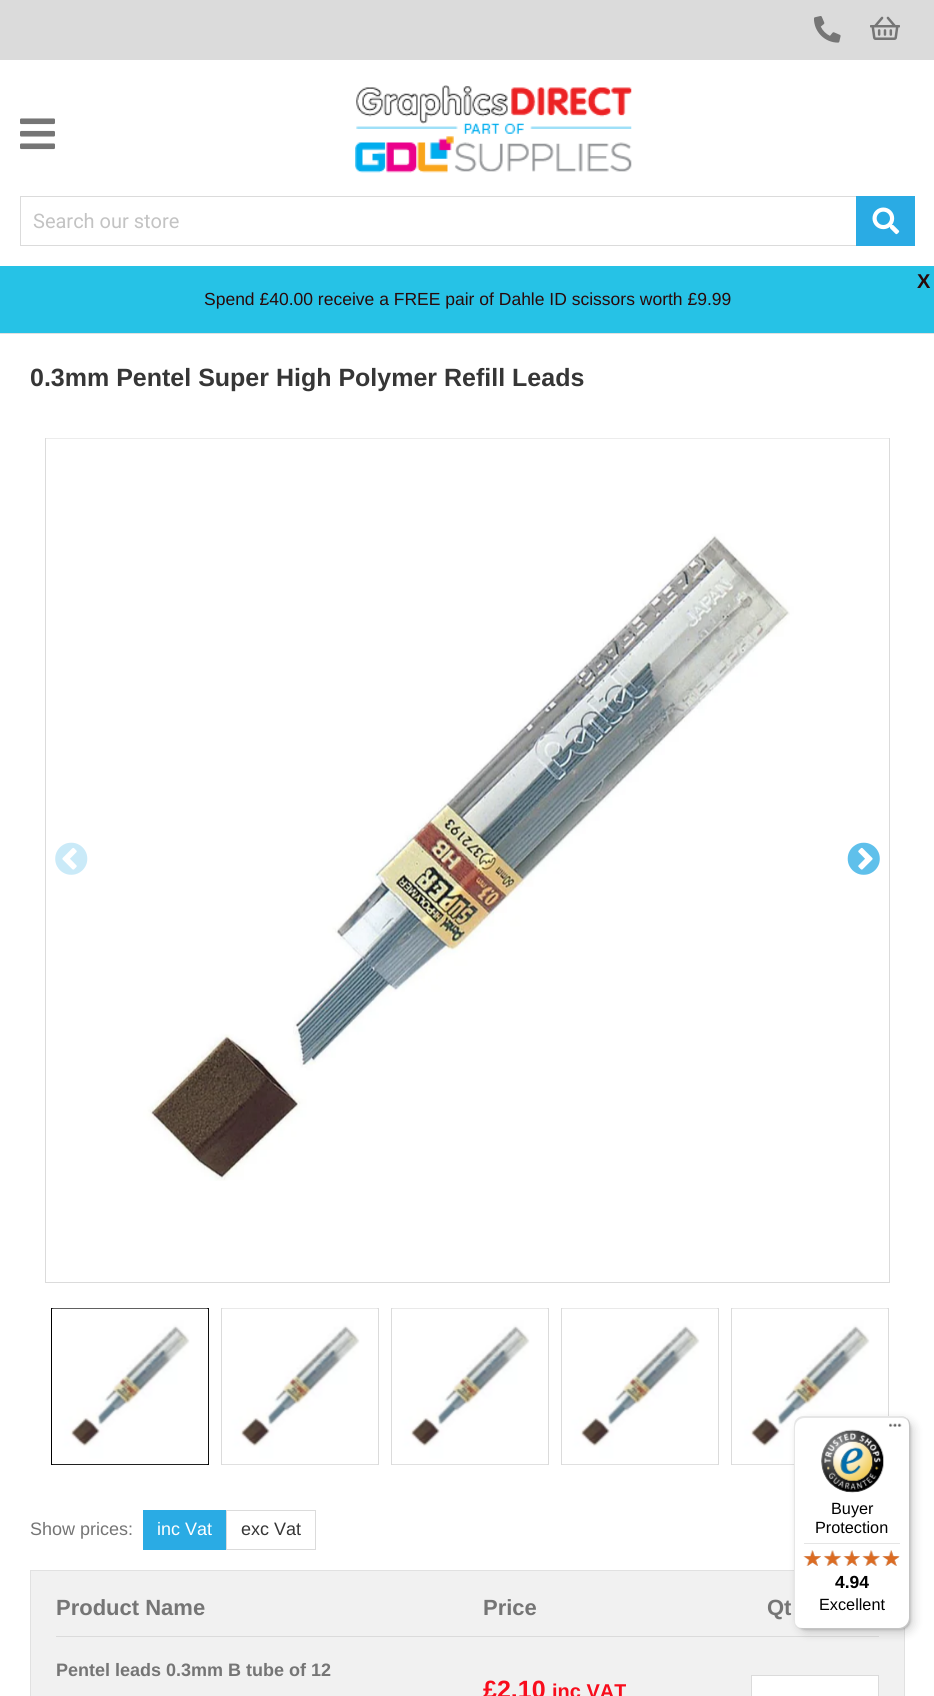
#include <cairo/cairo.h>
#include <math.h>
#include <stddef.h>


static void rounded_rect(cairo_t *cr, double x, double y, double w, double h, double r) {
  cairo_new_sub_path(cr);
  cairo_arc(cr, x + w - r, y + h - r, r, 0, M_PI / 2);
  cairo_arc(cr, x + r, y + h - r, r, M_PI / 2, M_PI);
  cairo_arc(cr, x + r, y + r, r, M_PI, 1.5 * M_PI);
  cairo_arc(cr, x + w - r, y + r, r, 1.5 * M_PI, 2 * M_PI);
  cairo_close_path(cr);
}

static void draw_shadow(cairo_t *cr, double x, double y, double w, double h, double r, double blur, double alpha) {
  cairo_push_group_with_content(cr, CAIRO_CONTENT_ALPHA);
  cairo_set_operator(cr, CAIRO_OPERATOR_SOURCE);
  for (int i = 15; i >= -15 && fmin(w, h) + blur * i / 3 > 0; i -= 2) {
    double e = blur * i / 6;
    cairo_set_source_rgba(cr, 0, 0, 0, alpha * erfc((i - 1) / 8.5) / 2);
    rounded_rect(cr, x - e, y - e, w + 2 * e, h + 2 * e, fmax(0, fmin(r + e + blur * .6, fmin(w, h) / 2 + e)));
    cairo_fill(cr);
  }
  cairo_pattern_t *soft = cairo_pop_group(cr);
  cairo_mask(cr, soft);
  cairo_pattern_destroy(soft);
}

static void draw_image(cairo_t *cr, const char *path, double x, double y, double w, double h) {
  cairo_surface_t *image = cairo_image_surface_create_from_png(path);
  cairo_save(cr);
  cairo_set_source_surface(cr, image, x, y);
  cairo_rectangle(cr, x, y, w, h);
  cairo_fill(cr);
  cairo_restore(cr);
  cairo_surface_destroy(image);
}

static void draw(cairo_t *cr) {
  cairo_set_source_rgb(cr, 1, 1, 1);
  cairo_paint(cr);
  cairo_set_source_rgb(cr, 219 / 255.0, 219 / 255.0, 219 / 255.0);
  cairo_rectangle(cr, 0, 0, 934, 60);
  cairo_fill(cr);
  draw_image(cr, "images/1.png", 814, 16, 27, 27);
  draw_image(cr, "images/2.png", 870, 16, 30, 24);
  draw_image(cr, "images/3.png", 20, 118, 35, 32);
  draw_image(cr, "images/4.png", 355, 85, 277, 88);
  cairo_rectangle(cr, 20.5, 196.5, 837, 49);
  cairo_set_line_width(cr, 1);
  cairo_stroke(cr);
  cairo_set_source_rgb(cr, 42 / 255.0, 171 / 255.0, 228 / 255.0);
  cairo_rectangle(cr, 856, 196, 59, 50);
  cairo_fill(cr);
  draw_image(cr, "images/5.png", 872, 207, 28, 28);
  cairo_set_source_rgb(cr, 38 / 255.0, 194 / 255.0, 230 / 255.0);
  cairo_rectangle(cr, 0, 266, 934, 67);
  cairo_fill(cr);
  cairo_set_source_rgb(cr, 225 / 255.0, 225 / 255.0, 225 / 255.0);
  cairo_rectangle(cr, 0, 333, 934, 1);
  cairo_fill(cr);
  cairo_rectangle(cr, 45.5, 438.5, 844, 844);
  cairo_set_source_rgb(cr, 219 / 255.0, 219 / 255.0, 219 / 255.0);
  cairo_stroke(cr);
  draw_image(cr, "images/6.png", 46, 438, 843, 743);
  draw_image(cr, "images/7.png", 55, 842, 33, 33);
  draw_image(cr, "images/8.png", 847, 842, 33, 33);
  cairo_rectangle(cr, 51.5, 1308.5, 157, 156);
  cairo_set_source_rgb(cr, 0, 0, 0);
  cairo_stroke(cr);
  draw_image(cr, "images/9.png", 52, 1308, 157, 157);
  cairo_rectangle(cr, 221.5, 1308.5, 157, 156);
  cairo_set_source_rgb(cr, 219 / 255.0, 219 / 255.0, 219 / 255.0);
  cairo_stroke(cr);
  draw_image(cr, "images/10.png", 222, 1308, 156, 157);
  cairo_rectangle(cr, 391.5, 1308.5, 157, 156);
  cairo_stroke(cr);
  draw_image(cr, "images/11.png", 392, 1308, 156, 157);
  cairo_rectangle(cr, 561.5, 1308.5, 157, 156);
  cairo_stroke(cr);
  draw_image(cr, "images/12.png", 562, 1308, 156, 157);
  cairo_rectangle(cr, 731.5, 1308.5, 157, 156);
  cairo_stroke(cr);
  draw_image(cr, "images/10.png", 732, 1308, 156, 157);
  cairo_set_source_rgb(cr, 42 / 255.0, 171 / 255.0, 228 / 255.0);
  cairo_rectangle(cr, 143, 1510, 83, 40);
  cairo_fill(cr);
  cairo_rectangle(cr, 226.5, 1510.5, 89, 39);
  cairo_set_source_rgb(cr, 219 / 255.0, 219 / 255.0, 219 / 255.0);
  cairo_stroke(cr);
  cairo_set_source_rgb(cr, 241 / 255.0, 241 / 255.0, 241 / 255.0);
  cairo_rectangle(cr, 30.5, 1570.5, 874, 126);
  cairo_fill_preserve(cr);
  cairo_set_source_rgb(cr, 225 / 255.0, 225 / 255.0, 225 / 255.0);
  cairo_stroke(cr);
  cairo_set_source_rgb(cr, 219 / 255.0, 219 / 255.0, 219 / 255.0);
  cairo_rectangle(cr, 56, 1636, 823, 1);
  cairo_fill(cr);
  cairo_set_source_rgb(cr, 1, 1, 1);
  cairo_rectangle(cr, 751.5, 1675.5, 127, 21);
  cairo_fill_preserve(cr);
  cairo_set_source_rgb(cr, 219 / 255.0, 219 / 255.0, 219 / 255.0);
  cairo_stroke(cr);
  cairo_set_source_rgb(cr, 0, 0, 0);
  draw_shadow(cr, 798, 1420, 116, 213, 10, 5, 0.15);
  draw_shadow(cr, 795, 1418, 116, 212, 10, 1, 0.15);
  cairo_set_source_rgb(cr, 1, 1, 1);
  rounded_rect(cr, 794, 1416, 116, 213, 10);
  cairo_fill(cr);
  cairo_set_source_rgba(cr, 0, 0, 0, 0.1);
  cairo_new_path(cr);
  cairo_move_to(cr, 805, 1418);
  cairo_line_to(cr, 901, 1418);
  cairo_curve_to(cr, 904, 1418, 907, 1419, 909, 1422);
  cairo_curve_to(cr, 907, 1418, 904, 1416, 900, 1416);
  cairo_line_to(cr, 804, 1416);
  cairo_curve_to(cr, 798, 1416, 794, 1420, 794, 1426);
  cairo_line_to(cr, 794, 1619);
  cairo_curve_to(cr, 794, 1621, 795, 1624, 796, 1625);
  cairo_curve_to(cr, 795, 1624, 795, 1622, 795, 1620);
  cairo_line_to(cr, 795, 1428);
  cairo_curve_to(cr, 795, 1422, 799, 1418, 805, 1418);
  cairo_close_path(cr);
  cairo_fill(cr);
  cairo_set_source_rgba(cr, 0, 0, 0, 0.2);
  cairo_new_path(cr);
  cairo_move_to(cr, 798, 1627);
  cairo_curve_to(cr, 800, 1628, 802, 1629, 804, 1629);
  cairo_line_to(cr, 900, 1629);
  cairo_curve_to(cr, 906, 1629, 910, 1625, 910, 1619);
  cairo_line_to(cr, 910, 1426);
  cairo_curve_to(cr, 910, 1423, 909, 1420, 907, 1418);
  cairo_curve_to(cr, 908, 1420, 909, 1422, 909, 1425);
  cairo_line_to(cr, 909, 1618);
  cairo_curve_to(cr, 909, 1623, 904, 1628, 899, 1628);
  cairo_line_to(cr, 802, 1628);
  cairo_curve_to(cr, 801, 1628, 799, 1628, 798, 1627);
  cairo_close_path(cr);
  cairo_fill(cr);
  cairo_set_source_rgba(cr, 50 / 255.0, 50 / 255.0, 50 / 255.0, 0.2);
  cairo_new_path(cr);
  cairo_move_to(cr, 798, 1627);
  cairo_curve_to(cr, 799, 1628, 802, 1629, 804, 1629);
  cairo_line_to(cr, 900, 1629);
  cairo_curve_to(cr, 906, 1629, 910, 1625, 910, 1619);
  cairo_line_to(cr, 910, 1426);
  cairo_curve_to(cr, 910, 1420, 906, 1416, 900, 1416);
  cairo_line_to(cr, 899, 1416);
  cairo_curve_to(cr, 905, 1416, 909, 1420, 909, 1426);
  cairo_line_to(cr, 909, 1618);
  cairo_curve_to(cr, 909, 1624, 905, 1628, 899, 1628);
  cairo_line_to(cr, 803, 1628);
  cairo_curve_to(cr, 801, 1628, 799, 1628, 798, 1627);
  cairo_close_path(cr);
  cairo_fill(cr);
  cairo_set_source_rgba(cr, 1, 1, 1, 0.3);
  cairo_new_path(cr);
  cairo_move_to(cr, 796, 1625);
  cairo_curve_to(cr, 798, 1628, 801, 1629, 804, 1629);
  cairo_line_to(cr, 900, 1629);
  cairo_curve_to(cr, 906, 1629, 910, 1625, 910, 1619);
  cairo_line_to(cr, 910, 1426);
  cairo_curve_to(cr, 910, 1420, 906, 1416, 900, 1416);
  cairo_line_to(cr, 899, 1416);
  cairo_curve_to(cr, 905, 1416, 909, 1420, 909, 1426);
  cairo_line_to(cr, 909, 1618);
  cairo_curve_to(cr, 909, 1624, 905, 1628, 899, 1628);
  cairo_line_to(cr, 803, 1628);
  cairo_curve_to(cr, 801, 1628, 798, 1627, 796, 1625);
  cairo_close_path(cr);
  cairo_fill(cr);
  draw_image(cr, "images/13.png", 889, 1423, 13, 4);
  draw_image(cr, "images/14.png", 821, 1429, 63, 64);
  cairo_set_source_rgb(cr, 229 / 255.0, 229 / 255.0, 229 / 255.0);
  cairo_rectangle(cr, 804, 1543, 96, 1);
  cairo_fill(cr);
  draw_image(cr, "images/15.png", 803, 1550, 18, 16);
  draw_image(cr, "images/16.png", 824, 1550, 17, 16);
  draw_image(cr, "images/17.png", 843, 1550, 17, 16);
  draw_image(cr, "images/18.png", 863, 1550, 17, 16);
  draw_image(cr, "images/19.png", 882, 1550, 18, 16);
  draw_image(cr, "images/20.png", 803, 1550, 18, 16);
  draw_image(cr, "images/21.png", 823, 1550, 19, 16);
  draw_image(cr, "images/22.png", 843, 1550, 17, 16);
  draw_image(cr, "images/23.png", 862, 1550, 18, 16);
  draw_image(cr, "images/24.png", 882, 1550, 17, 16);
  cairo_select_font_face(cr, "Roboto", CAIRO_FONT_SLANT_NORMAL, CAIRO_FONT_WEIGHT_NORMAL);
  cairo_set_font_size(cr, 20);
  cairo_set_source_rgb(cr, 195 / 255.0, 195 / 255.0, 195 / 255.0);
  cairo_move_to(cr, 33, 228);
  cairo_show_text(cr, "Search our store");
  cairo_select_font_face(cr, "Liberation Sans", CAIRO_FONT_SLANT_NORMAL, CAIRO_FONT_WEIGHT_BOLD);
  cairo_set_source_rgb(cr, 41 / 255.0, 9 / 255.0, 9 / 255.0);
  cairo_move_to(cr, 917, 288);
  cairo_show_text(cr, "X");
  cairo_select_font_face(cr, "Liberation Sans", CAIRO_FONT_SLANT_NORMAL, CAIRO_FONT_WEIGHT_NORMAL);
  cairo_set_font_size(cr, 17.5);
  cairo_move_to(cr, 204, 305);
  cairo_show_text(cr, "Spend £40.00 receive a FREE pair of Dahle ID scissors worth £9.99");
  cairo_select_font_face(cr, "Liberation Sans", CAIRO_FONT_SLANT_NORMAL, CAIRO_FONT_WEIGHT_BOLD);
  cairo_set_font_size(cr, 25);
  cairo_set_source_rgb(cr, 54 / 255.0, 54 / 255.0, 54 / 255.0);
  cairo_move_to(cr, 30, 386);
  cairo_show_text(cr, "0.3mm Pentel Super High Polymer Refill Leads");
  cairo_select_font_face(cr, "Liberation Sans", CAIRO_FONT_SLANT_NORMAL, CAIRO_FONT_WEIGHT_NORMAL);
  cairo_set_font_size(cr, 18);
  cairo_set_source_rgb(cr, 117 / 255.0, 117 / 255.0, 117 / 255.0);
  cairo_move_to(cr, 30, 1535);
  cairo_show_text(cr, "Show prices:");
  cairo_set_source_rgb(cr, 1, 1, 1);
  cairo_move_to(cr, 157, 1535);
  cairo_show_text(cr, "inc Vat");
  cairo_set_source_rgb(cr, 54 / 255.0, 54 / 255.0, 54 / 255.0);
  cairo_move_to(cr, 241, 1535);
  cairo_show_text(cr, "exc Vat");
  cairo_select_font_face(cr, "Liberation Sans", CAIRO_FONT_SLANT_NORMAL, CAIRO_FONT_WEIGHT_BOLD);
  cairo_set_font_size(cr, 22);
  cairo_set_source_rgb(cr, 117 / 255.0, 117 / 255.0, 117 / 255.0);
  cairo_move_to(cr, 56, 1615);
  cairo_show_text(cr, "Product Name");
  cairo_move_to(cr, 483, 1615);
  cairo_show_text(cr, "Price");
  cairo_move_to(cr, 767, 1615);
  cairo_show_text(cr, "Qt");
  cairo_set_font_size(cr, 18);
  cairo_move_to(cr, 56, 1676);
  cairo_show_text(cr, "Pentel leads 0.3mm B tube of 12");
  cairo_set_font_size(cr, 25);
  cairo_set_source_rgb(cr, 248 / 255.0, 13 / 255.0, 28 / 255.0);
  cairo_move_to(cr, 483, 1698);
  cairo_show_text(cr, "£2.10");
  cairo_set_font_size(cr, 20);
  cairo_move_to(cr, 552, 1698);
  cairo_show_text(cr, "inc VAT");
  cairo_select_font_face(cr, "Liberation Sans", CAIRO_FONT_SLANT_NORMAL, CAIRO_FONT_WEIGHT_NORMAL);
  cairo_set_font_size(cr, 16.25);
  cairo_set_source_rgb(cr, 0, 0, 0);
  cairo_move_to(cr, 831, 1514);
  cairo_show_text(cr, "Buyer");
  cairo_move_to(cr, 815, 1533);
  cairo_show_text(cr, "Protection");
  cairo_select_font_face(cr, "Liberation Sans", CAIRO_FONT_SLANT_NORMAL, CAIRO_FONT_WEIGHT_BOLD);
  cairo_set_font_size(cr, 17.5);
  cairo_move_to(cr, 835, 1588);
  cairo_show_text(cr, "4.94");
  cairo_select_font_face(cr, "Liberation Sans", CAIRO_FONT_SLANT_NORMAL, CAIRO_FONT_WEIGHT_NORMAL);
  cairo_set_font_size(cr, 16.25);
  cairo_move_to(cr, 819, 1610);
  cairo_show_text(cr, "Excellent");
}

int main(void) {
  cairo_surface_t *surface = cairo_image_surface_create(CAIRO_FORMAT_RGB24, 934, 1696);
  cairo_t *cr = cairo_create(surface);
  cairo_font_options_t *options = cairo_font_options_create();
  cairo_font_options_set_hint_metrics(options, CAIRO_HINT_METRICS_OFF);
  cairo_font_options_set_hint_style(options, CAIRO_HINT_STYLE_NONE);
  cairo_set_font_options(cr, options);
  cairo_set_miter_limit(cr, 4);
  draw(cr);
  cairo_surface_write_to_png(surface, "out.png");
  cairo_font_options_destroy(options);
  cairo_destroy(cr);
  cairo_surface_destroy(surface);
  return 0;
}
